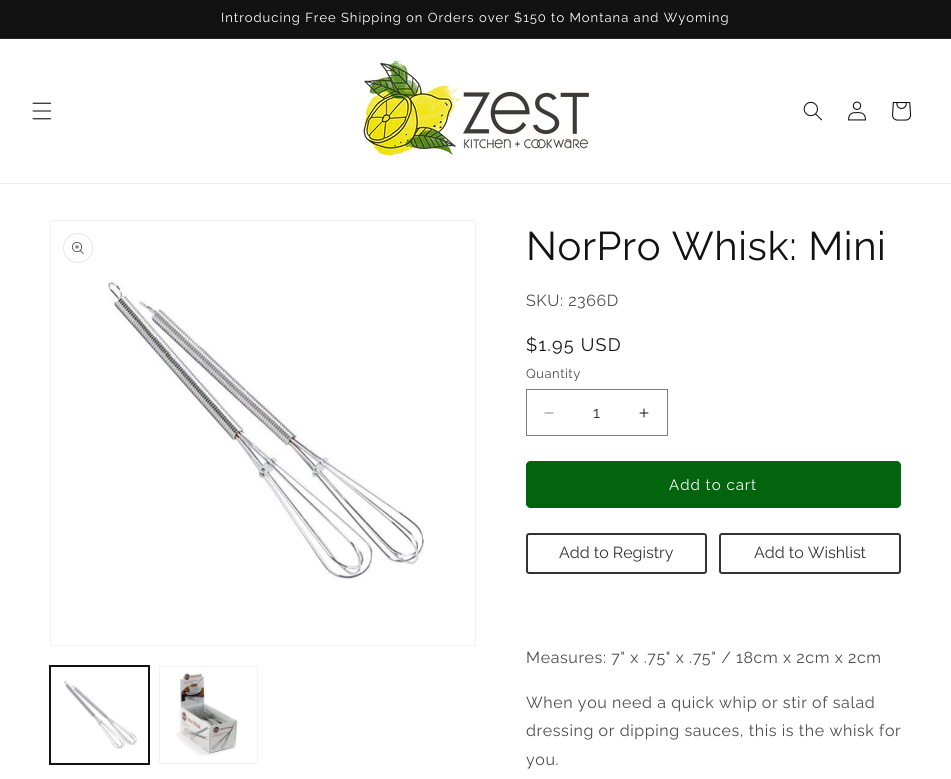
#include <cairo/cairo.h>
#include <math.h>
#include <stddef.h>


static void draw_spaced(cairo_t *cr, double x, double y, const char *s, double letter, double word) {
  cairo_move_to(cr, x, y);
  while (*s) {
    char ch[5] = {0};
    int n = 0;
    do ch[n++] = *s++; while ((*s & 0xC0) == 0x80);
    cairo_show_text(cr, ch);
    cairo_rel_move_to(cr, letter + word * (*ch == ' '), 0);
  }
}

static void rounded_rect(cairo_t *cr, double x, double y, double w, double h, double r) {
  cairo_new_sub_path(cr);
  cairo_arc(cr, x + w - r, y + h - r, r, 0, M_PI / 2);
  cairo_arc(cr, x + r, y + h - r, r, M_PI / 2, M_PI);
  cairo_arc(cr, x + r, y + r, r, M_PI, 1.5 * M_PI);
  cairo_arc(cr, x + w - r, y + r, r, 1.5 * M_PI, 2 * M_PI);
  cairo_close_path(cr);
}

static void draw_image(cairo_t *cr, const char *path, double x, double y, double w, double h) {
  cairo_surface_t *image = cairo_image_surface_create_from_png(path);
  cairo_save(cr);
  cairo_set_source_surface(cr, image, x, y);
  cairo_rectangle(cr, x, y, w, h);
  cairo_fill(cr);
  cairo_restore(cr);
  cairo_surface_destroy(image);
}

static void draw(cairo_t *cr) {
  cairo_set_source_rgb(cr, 1, 1, 1);
  cairo_paint(cr);
  cairo_set_source_rgb(cr, 18 / 255.0, 18 / 255.0, 18 / 255.0);
  cairo_rectangle(cr, 0, 0, 951, 38);
  cairo_fill(cr);
  cairo_set_source_rgb(cr, 37 / 255.0, 37 / 255.0, 37 / 255.0);
  cairo_rectangle(cr, 0, 38, 951, 1);
  cairo_fill(cr);
  cairo_set_source_rgb(cr, 236 / 255.0, 236 / 255.0, 236 / 255.0);
  cairo_rectangle(cr, 0, 183, 951, 1);
  cairo_fill(cr);
  draw_image(cr, "images/1.png", 32, 102, 20, 18);
  draw_image(cr, "images/2.png", 363, 60, 226, 96);
  draw_image(cr, "images/3.png", 803, 101, 19, 20);
  draw_image(cr, "images/4.png", 848, 101, 18, 20);
  draw_image(cr, "images/5.png", 892, 102, 20, 19);
  cairo_rectangle(cr, 50.5, 220.5, 425, 425);
  cairo_set_source_rgb(cr, 243 / 255.0, 243 / 255.0, 243 / 255.0);
  cairo_set_line_width(cr, 1);
  cairo_stroke(cr);
  cairo_arc(cr, 78, 248, 14.5, 0, 2 * M_PI);
  cairo_set_source_rgb(cr, 231 / 255.0, 231 / 255.0, 231 / 255.0);
  cairo_stroke(cr);
  draw_image(cr, "images/6.png", 72, 242, 12, 12);
  draw_image(cr, "images/7.png", 107, 282, 317, 298);
  cairo_rectangle(cr, 49.5, 665.5, 100, 99);
  cairo_set_source_rgb(cr, 18 / 255.0, 18 / 255.0, 18 / 255.0);
  cairo_stroke(cr);
  cairo_rectangle(cr, 50.5, 666.5, 98, 97);
  cairo_stroke(cr);
  draw_image(cr, "images/8.png", 64, 680, 73, 69);
  cairo_rectangle(cr, 159.5, 666.5, 98, 97);
  cairo_set_source_rgb(cr, 243 / 255.0, 243 / 255.0, 243 / 255.0);
  cairo_stroke(cr);
  draw_image(cr, "images/9.png", 176, 673, 62, 83);
  draw_image(cr, "images/10.png", 544, 412, 10, 2);
  draw_image(cr, "images/11.png", 639, 408, 10, 10);
  cairo_rectangle(cr, 526.5, 389.5, 141, 46);
  cairo_set_source_rgb(cr, 125 / 255.0, 125 / 255.0, 125 / 255.0);
  cairo_stroke(cr);
  cairo_set_source_rgb(cr, 2 / 255.0, 100 / 255.0, 13 / 255.0);
  rounded_rect(cr, 526, 461, 375, 47, 5);
  cairo_fill(cr);
  rounded_rect(cr, 526.5, 461.5, 374, 46, 4.5);
  cairo_stroke(cr);
  rounded_rect(cr, 527, 534, 179, 39, 2);
  cairo_set_source_rgb(cr, 51 / 255.0, 51 / 255.0, 51 / 255.0);
  cairo_set_line_width(cr, 2);
  cairo_stroke(cr);
  rounded_rect(cr, 720, 534, 180, 39, 2);
  cairo_stroke(cr);
  cairo_select_font_face(cr, "Raleway", CAIRO_FONT_SLANT_NORMAL, CAIRO_FONT_WEIGHT_NORMAL);
  cairo_set_font_size(cr, 13);
  cairo_set_source_rgb(cr, 1, 1, 1);
  draw_spaced(cr, 221, 22, "Introducing Free Shipping on Orders over $150 to Montana and Wyoming", 1, 0);
  cairo_set_font_size(cr, 40);
  cairo_set_source_rgb(cr, 18 / 255.0, 18 / 255.0, 18 / 255.0);
  draw_spaced(cr, 526, 260, "NorPro Whisk: Mini", 0.6, 0);
  cairo_set_font_size(cr, 16);
  cairo_set_source_rgb(cr, 77 / 255.0, 77 / 255.0, 77 / 255.0);
  draw_spaced(cr, 526, 306, "SKU: 2366D", 0.6, 0);
  cairo_set_font_size(cr, 18);
  cairo_set_source_rgb(cr, 18 / 255.0, 18 / 255.0, 18 / 255.0);
  draw_spaced(cr, 526, 351, "$1.95 USD", 1.25, 0);
  cairo_set_font_size(cr, 13);
  cairo_set_source_rgb(cr, 77 / 255.0, 77 / 255.0, 77 / 255.0);
  draw_spaced(cr, 526, 378, "Quantity", 0.5, 0);
  cairo_set_font_size(cr, 16);
  cairo_set_source_rgb(cr, 51 / 255.0, 51 / 255.0, 51 / 255.0);
  cairo_move_to(cr, 593, 418);
  cairo_show_text(cr, "1");
  cairo_set_font_size(cr, 15);
  cairo_set_source_rgb(cr, 1, 1, 1);
  draw_spaced(cr, 669, 490, "Add to cart", 1, 0);
  cairo_set_font_size(cr, 16);
  cairo_set_source_rgb(cr, 51 / 255.0, 51 / 255.0, 51 / 255.0);
  cairo_move_to(cr, 559, 558);
  cairo_show_text(cr, "Add to Registry");
  cairo_move_to(cr, 754, 558);
  cairo_show_text(cr, "Add to Wishlist");
  cairo_set_source_rgb(cr, 77 / 255.0, 77 / 255.0, 77 / 255.0);
  draw_spaced(cr, 526, 663, "Measures: 7\" x .75\" x .75\" / 18cm x 2cm x 2cm", 0.6, 0);
  draw_spaced(cr, 526, 708, "When you need a quick whip or stir of salad", 0.6, 0);
  draw_spaced(cr, 526, 736, "dressing or dipping sauces, this is the whisk for", 0.6, 0);
  draw_spaced(cr, 526, 765, "you.", 0.6, 0);
}

int main(void) {
  cairo_surface_t *surface = cairo_image_surface_create(CAIRO_FORMAT_RGB24, 951, 779);
  cairo_t *cr = cairo_create(surface);
  cairo_font_options_t *options = cairo_font_options_create();
  cairo_font_options_set_hint_metrics(options, CAIRO_HINT_METRICS_OFF);
  cairo_font_options_set_hint_style(options, CAIRO_HINT_STYLE_NONE);
  cairo_set_font_options(cr, options);
  cairo_set_miter_limit(cr, 4);
  draw(cr);
  cairo_surface_write_to_png(surface, "out.png");
  cairo_font_options_destroy(options);
  cairo_destroy(cr);
  cairo_surface_destroy(surface);
  return 0;
}
